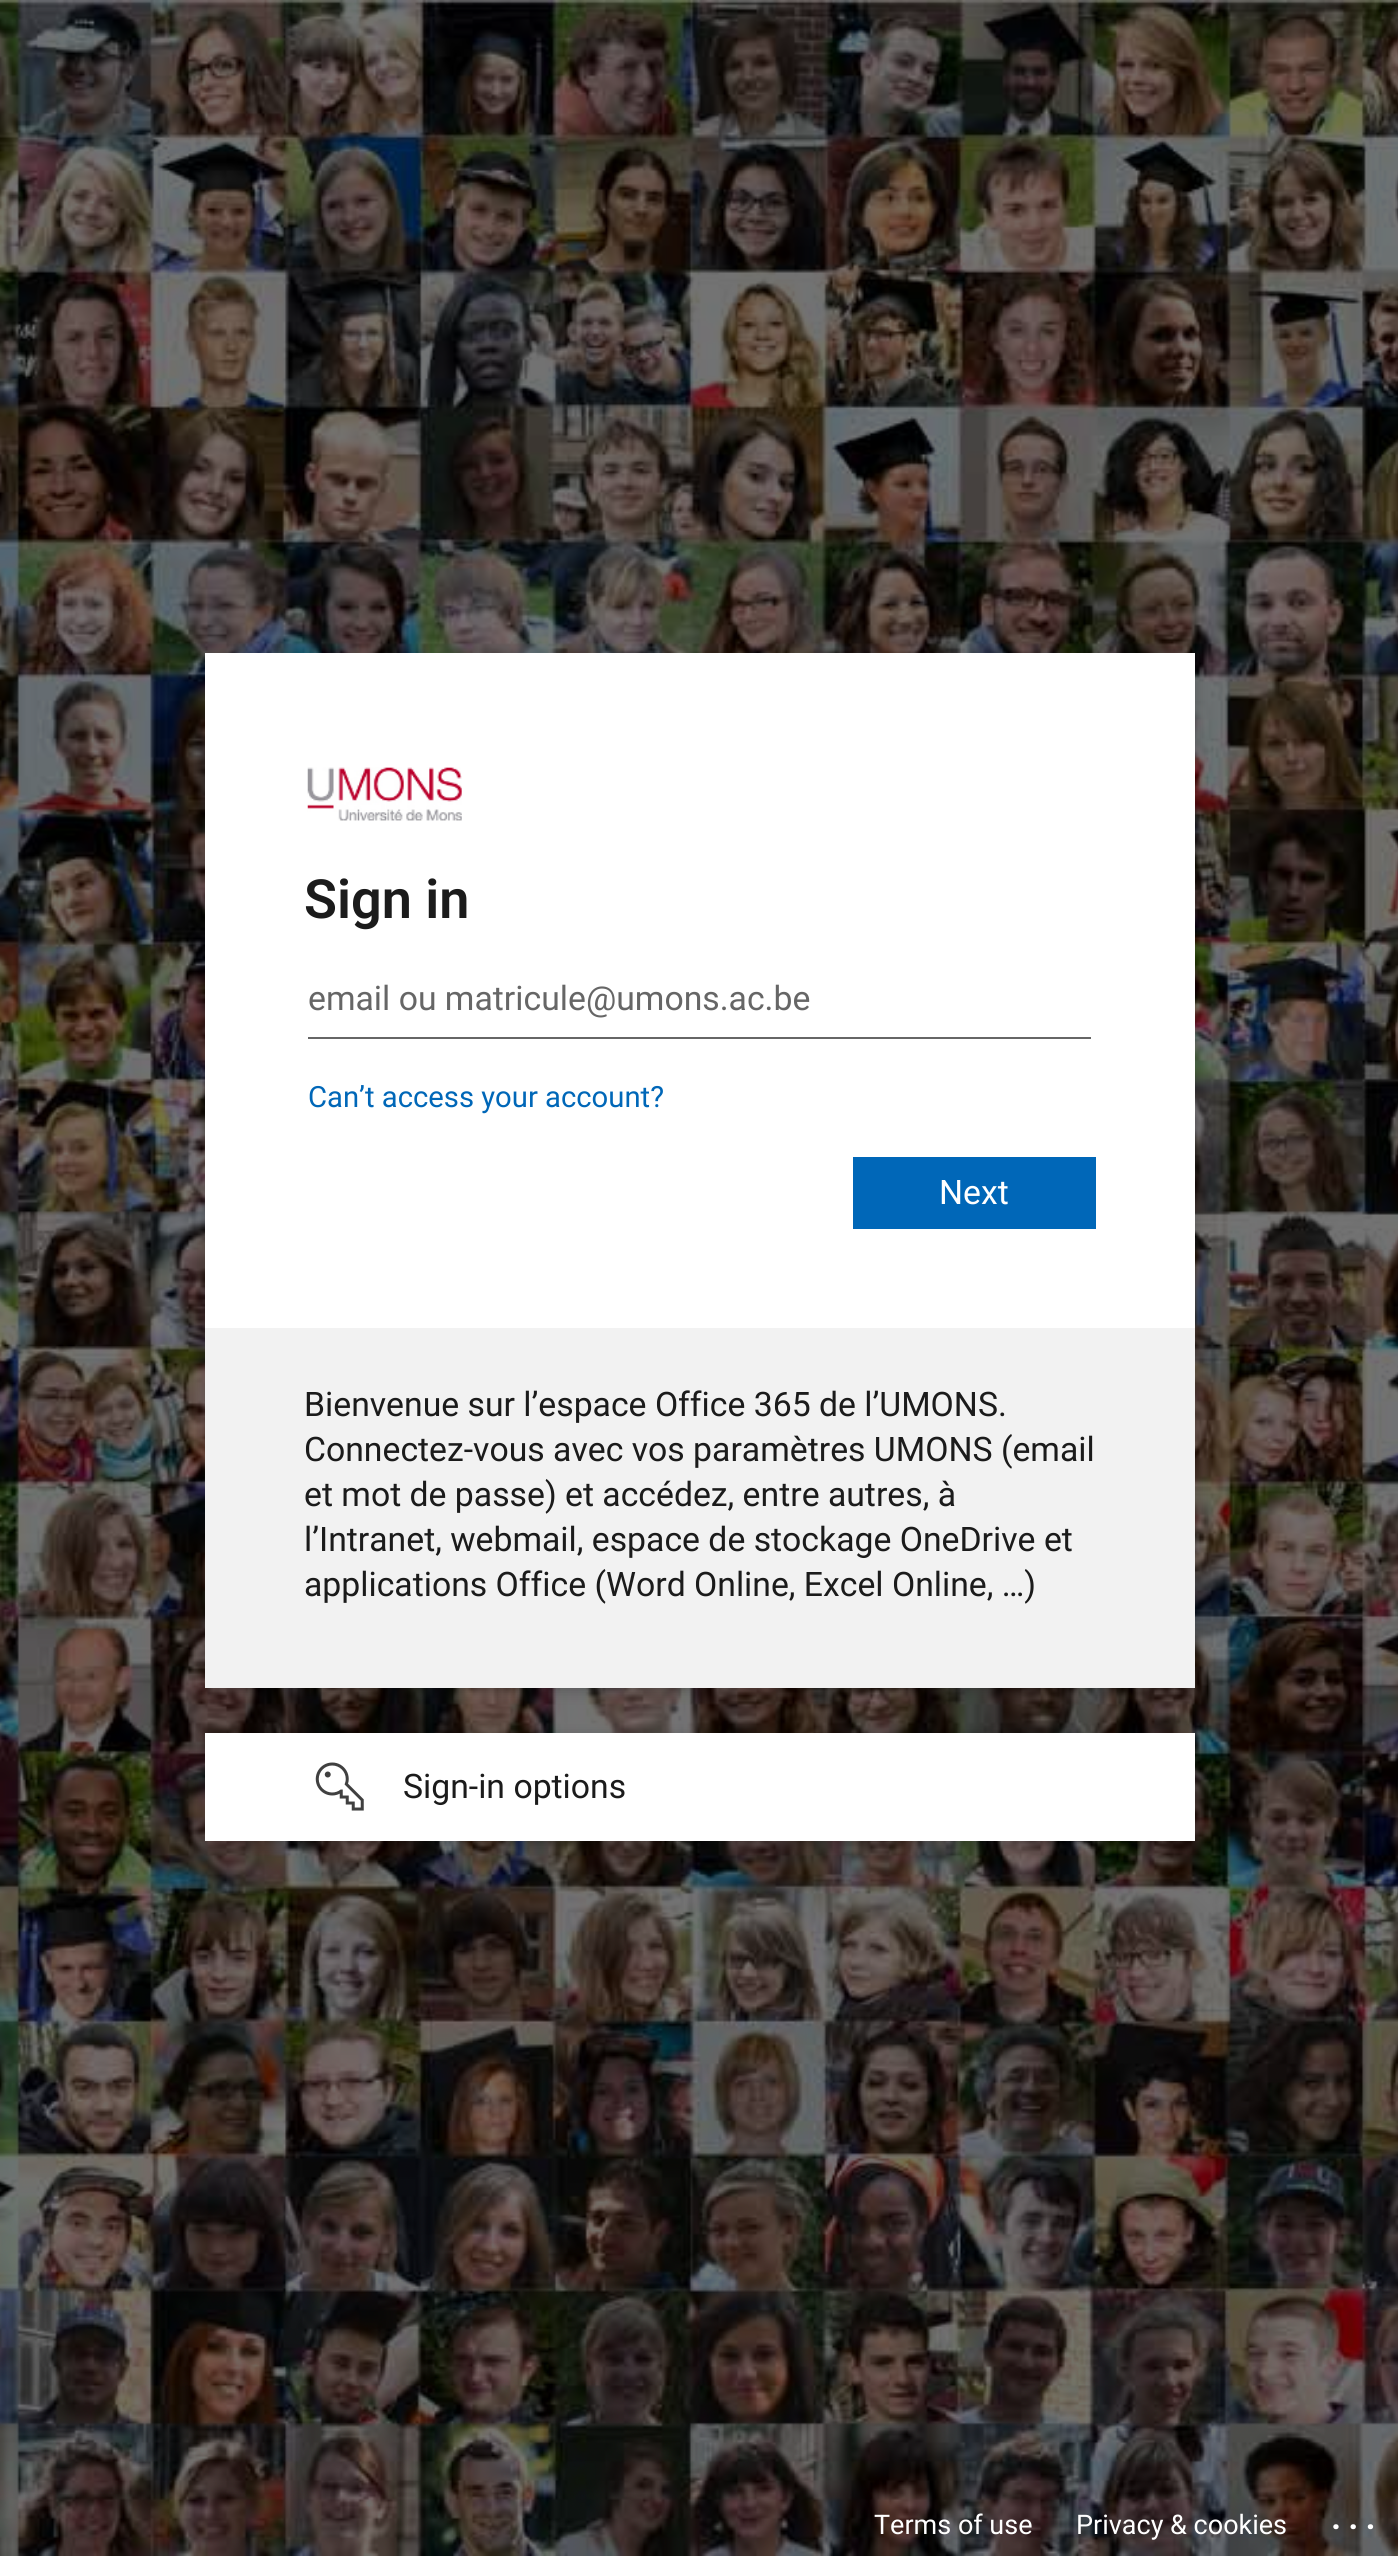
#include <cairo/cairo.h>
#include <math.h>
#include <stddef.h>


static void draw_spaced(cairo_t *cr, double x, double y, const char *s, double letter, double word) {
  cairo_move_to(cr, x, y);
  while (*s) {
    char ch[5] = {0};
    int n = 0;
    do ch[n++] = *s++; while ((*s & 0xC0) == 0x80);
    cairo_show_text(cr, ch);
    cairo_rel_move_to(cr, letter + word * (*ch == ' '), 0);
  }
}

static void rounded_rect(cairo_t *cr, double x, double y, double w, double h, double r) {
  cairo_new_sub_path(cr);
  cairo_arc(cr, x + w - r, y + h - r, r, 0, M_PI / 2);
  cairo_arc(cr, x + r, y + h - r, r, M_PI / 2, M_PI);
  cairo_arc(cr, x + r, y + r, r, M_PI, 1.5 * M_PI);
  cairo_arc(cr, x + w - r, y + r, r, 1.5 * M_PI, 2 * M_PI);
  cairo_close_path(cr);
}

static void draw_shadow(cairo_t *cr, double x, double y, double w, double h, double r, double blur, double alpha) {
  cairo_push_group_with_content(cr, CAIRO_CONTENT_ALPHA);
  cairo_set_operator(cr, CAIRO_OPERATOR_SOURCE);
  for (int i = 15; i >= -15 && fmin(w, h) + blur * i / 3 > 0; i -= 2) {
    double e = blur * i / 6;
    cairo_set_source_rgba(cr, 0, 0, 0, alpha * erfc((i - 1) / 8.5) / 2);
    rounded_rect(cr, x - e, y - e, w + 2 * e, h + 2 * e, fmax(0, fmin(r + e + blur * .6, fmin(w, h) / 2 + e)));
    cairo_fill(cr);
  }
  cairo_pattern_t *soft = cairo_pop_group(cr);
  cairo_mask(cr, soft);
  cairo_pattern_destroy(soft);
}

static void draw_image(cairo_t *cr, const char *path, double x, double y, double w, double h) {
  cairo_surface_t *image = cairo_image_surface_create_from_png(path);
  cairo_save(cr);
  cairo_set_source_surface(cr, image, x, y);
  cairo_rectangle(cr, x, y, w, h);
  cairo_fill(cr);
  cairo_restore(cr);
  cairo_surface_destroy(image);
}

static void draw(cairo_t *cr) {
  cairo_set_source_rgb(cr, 1, 1, 1);
  cairo_paint(cr);
  draw_image(cr, "images/1.png", 0, 0, 1398, 2556);
  cairo_set_source_rgb(cr, 0, 0, 0);
  draw_shadow(cr, 205, 657, 990, 1035, 0, 7, 0.2);
  cairo_set_source_rgb(cr, 1, 1, 1);
  cairo_rectangle(cr, 205, 653, 990, 675);
  cairo_fill(cr);
  draw_image(cr, "images/2.png", 307, 767, 155, 54);
  cairo_set_source_rgb(cr, 102 / 255.0, 102 / 255.0, 102 / 255.0);
  cairo_rectangle(cr, 308, 1037, 783, 2);
  cairo_fill(cr);
  cairo_set_source_rgb(cr, 0, 103 / 255.0, 184 / 255.0);
  cairo_rectangle(cr, 853, 1157, 243, 72);
  cairo_fill(cr);
  cairo_set_source_rgb(cr, 242 / 255.0, 242 / 255.0, 242 / 255.0);
  cairo_rectangle(cr, 205, 1328, 990, 360);
  cairo_fill(cr);
  cairo_set_source_rgb(cr, 0, 0, 0);
  draw_shadow(cr, 205, 1737, 990, 108, 0, 7, 0.2);
  cairo_set_source_rgb(cr, 1, 1, 1);
  cairo_rectangle(cr, 205, 1733, 990, 108);
  cairo_fill(cr);
  draw_image(cr, "images/3.png", 315, 1762, 49, 49);
  cairo_select_font_face(cr, "Roboto SemiBold", CAIRO_FONT_SLANT_NORMAL, CAIRO_FONT_WEIGHT_NORMAL);
  cairo_set_font_size(cr, 54);
  cairo_set_source_rgb(cr, 27 / 255.0, 27 / 255.0, 27 / 255.0);
  cairo_move_to(cr, 304, 918);
  cairo_show_text(cr, "Sign in");
  cairo_select_font_face(cr, "Roboto", CAIRO_FONT_SLANT_NORMAL, CAIRO_FONT_WEIGHT_NORMAL);
  cairo_set_font_size(cr, 33.75);
  cairo_set_source_rgb(cr, 102 / 255.0, 102 / 255.0, 102 / 255.0);
  cairo_move_to(cr, 308, 1010);
  cairo_show_text(cr, "email ou matricule@umons.ac.be");
  cairo_set_font_size(cr, 29.25);
  cairo_set_source_rgb(cr, 0, 103 / 255.0, 184 / 255.0);
  cairo_move_to(cr, 308, 1107);
  cairo_show_text(cr, "Can’t access your account?");
  cairo_set_font_size(cr, 33.75);
  cairo_set_source_rgb(cr, 1, 1, 1);
  cairo_move_to(cr, 939, 1204);
  cairo_show_text(cr, "Next");
  cairo_set_source_rgb(cr, 27 / 255.0, 27 / 255.0, 27 / 255.0);
  cairo_move_to(cr, 304, 1416);
  cairo_show_text(cr, "Bienvenue sur l’espace Office 365 de l’UMONS.");
  cairo_move_to(cr, 304, 1461);
  cairo_show_text(cr, "Connectez-vous avec vos paramètres UMONS (email");
  cairo_move_to(cr, 304, 1506);
  cairo_show_text(cr, "et mot de passe) et accédez, entre autres, à");
  cairo_move_to(cr, 304, 1551);
  cairo_show_text(cr, "l’Intranet, webmail, espace de stockage OneDrive et");
  cairo_move_to(cr, 304, 1596);
  cairo_show_text(cr, "applications Office (Word Online, Excel Online, …)");
  cairo_move_to(cr, 403, 1798);
  cairo_show_text(cr, "Sign-in options");
  cairo_set_font_size(cr, 27);
  cairo_set_source_rgb(cr, 1, 1, 1);
  cairo_move_to(cr, 874, 2534);
  cairo_show_text(cr, "Terms of use");
  cairo_move_to(cr, 1076, 2534);
  cairo_show_text(cr, "Privacy & cookies");
  cairo_select_font_face(cr, "Roboto SemiBold", CAIRO_FONT_SLANT_NORMAL, CAIRO_FONT_WEIGHT_NORMAL);
  cairo_set_font_size(cr, 36);
  draw_spaced(cr, 1331, 2529, "...", 7, 0);
}

int main(void) {
  cairo_surface_t *surface = cairo_image_surface_create(CAIRO_FORMAT_RGB24, 1398, 2556);
  cairo_t *cr = cairo_create(surface);
  cairo_font_options_t *options = cairo_font_options_create();
  cairo_font_options_set_hint_metrics(options, CAIRO_HINT_METRICS_OFF);
  cairo_font_options_set_hint_style(options, CAIRO_HINT_STYLE_NONE);
  cairo_set_font_options(cr, options);
  cairo_set_miter_limit(cr, 4);
  draw(cr);
  cairo_surface_write_to_png(surface, "out.png");
  cairo_font_options_destroy(options);
  cairo_destroy(cr);
  cairo_surface_destroy(surface);
  return 0;
}
